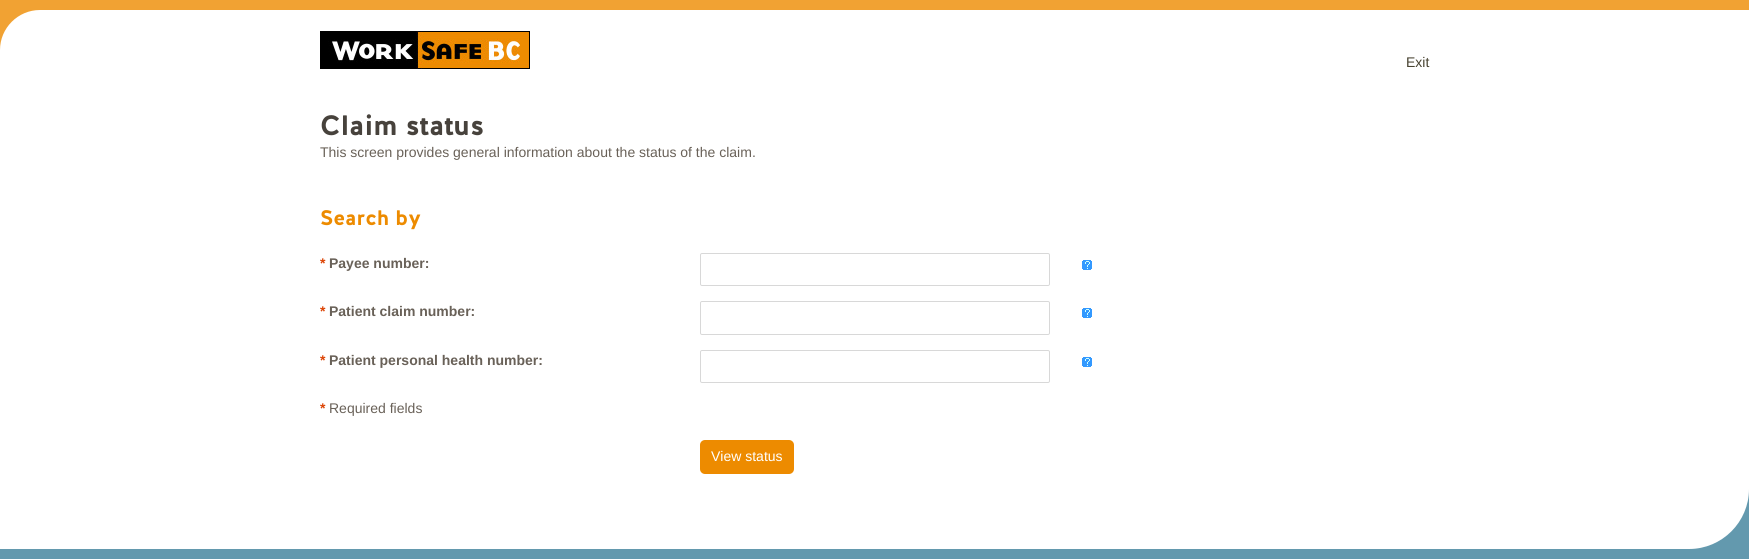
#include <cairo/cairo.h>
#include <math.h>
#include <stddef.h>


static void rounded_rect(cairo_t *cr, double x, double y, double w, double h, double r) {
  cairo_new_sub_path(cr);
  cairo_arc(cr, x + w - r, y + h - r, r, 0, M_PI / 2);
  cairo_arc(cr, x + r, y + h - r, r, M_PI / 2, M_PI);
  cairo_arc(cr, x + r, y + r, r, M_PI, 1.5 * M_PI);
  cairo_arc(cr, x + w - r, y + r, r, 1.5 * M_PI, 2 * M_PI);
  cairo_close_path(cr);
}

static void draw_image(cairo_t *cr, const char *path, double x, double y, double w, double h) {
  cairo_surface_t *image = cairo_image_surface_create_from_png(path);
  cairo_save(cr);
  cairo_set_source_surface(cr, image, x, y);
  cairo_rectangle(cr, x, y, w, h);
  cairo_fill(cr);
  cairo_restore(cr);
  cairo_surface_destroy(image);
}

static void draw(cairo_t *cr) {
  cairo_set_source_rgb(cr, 1, 1, 1);
  cairo_paint(cr);
  cairo_set_source_rgb(cr, 241 / 255.0, 162 / 255.0, 51 / 255.0);
  cairo_rectangle(cr, 0, 0, 1749, 50);
  cairo_fill(cr);
  cairo_set_source_rgb(cr, 1, 1, 1);
  cairo_new_path(cr);
  cairo_move_to(cr, 40, 10);
  cairo_line_to(cr, 1749, 10);
  cairo_line_to(cr, 1749, 81);
  cairo_line_to(cr, 0, 81);
  cairo_line_to(cr, 0, 50);
  cairo_curve_to(cr, 0, 28, 18, 10, 40, 10);
  cairo_close_path(cr);
  cairo_fill(cr);
  draw_image(cr, "images/1.png", 320, 31, 210, 38);
  rounded_rect(cr, 700.5, 253.5, 349, 32, 1.5);
  cairo_set_source_rgb(cr, 216 / 255.0, 216 / 255.0, 216 / 255.0);
  cairo_set_line_width(cr, 1);
  cairo_stroke(cr);
  draw_image(cr, "images/2.png", 1082, 260, 10, 10);
  rounded_rect(cr, 700.5, 301.5, 349, 33, 1.5);
  cairo_stroke(cr);
  draw_image(cr, "images/2.png", 1082, 308, 10, 10);
  rounded_rect(cr, 700.5, 350.5, 349, 32, 1.5);
  cairo_stroke(cr);
  draw_image(cr, "images/2.png", 1082, 357, 10, 10);
  cairo_set_source_rgb(cr, 237 / 255.0, 139 / 255.0, 0);
  rounded_rect(cr, 700, 440, 94, 34, 5);
  cairo_fill(cr);
  cairo_set_source_rgb(cr, 99 / 255.0, 153 / 255.0, 174 / 255.0);
  cairo_rectangle(cr, 0, 489, 1749, 70);
  cairo_fill(cr);
  cairo_set_source_rgb(cr, 1, 1, 1);
  cairo_new_path(cr);
  cairo_move_to(cr, 0, 489);
  cairo_line_to(cr, 1749, 489);
  cairo_curve_to(cr, 1749, 522, 1722, 549, 1689, 549);
  cairo_line_to(cr, 0, 549);
  cairo_close_path(cr);
  cairo_fill(cr);
  cairo_select_font_face(cr, "Liberation Sans", CAIRO_FONT_SLANT_NORMAL, CAIRO_FONT_WEIGHT_NORMAL);
  cairo_set_font_size(cr, 14);
  cairo_set_source_rgb(cr, 71 / 255.0, 66 / 255.0, 48 / 255.0);
  cairo_move_to(cr, 1406, 67);
  cairo_show_text(cr, "Exit");
  cairo_select_font_face(cr, "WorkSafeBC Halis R", CAIRO_FONT_SLANT_NORMAL, CAIRO_FONT_WEIGHT_BOLD);
  cairo_set_font_size(cr, 28);
  cairo_set_source_rgb(cr, 71 / 255.0, 66 / 255.0, 60 / 255.0);
  cairo_move_to(cr, 320, 135);
  cairo_show_text(cr, "Claim status");
  cairo_select_font_face(cr, "Liberation Sans", CAIRO_FONT_SLANT_NORMAL, CAIRO_FONT_WEIGHT_NORMAL);
  cairo_set_font_size(cr, 14);
  cairo_set_source_rgb(cr, 105 / 255.0, 97 / 255.0, 88 / 255.0);
  cairo_move_to(cr, 320, 157);
  cairo_show_text(cr, "This screen provides general information about the status of the claim.");
  cairo_select_font_face(cr, "WorkSafeBC Halis R", CAIRO_FONT_SLANT_NORMAL, CAIRO_FONT_WEIGHT_BOLD);
  cairo_set_font_size(cr, 21);
  cairo_set_source_rgb(cr, 237 / 255.0, 139 / 255.0, 0);
  cairo_move_to(cr, 320, 225);
  cairo_show_text(cr, "Search by");
  cairo_select_font_face(cr, "Liberation Sans", CAIRO_FONT_SLANT_NORMAL, CAIRO_FONT_WEIGHT_BOLD);
  cairo_set_font_size(cr, 14);
  cairo_set_source_rgb(cr, 220 / 255.0, 68 / 255.0, 5 / 255.0);
  cairo_move_to(cr, 320, 268);
  cairo_show_text(cr, "*");
  cairo_set_source_rgb(cr, 105 / 255.0, 97 / 255.0, 88 / 255.0);
  cairo_move_to(cr, 329, 268);
  cairo_show_text(cr, "Payee number:");
  cairo_set_source_rgb(cr, 220 / 255.0, 68 / 255.0, 5 / 255.0);
  cairo_move_to(cr, 320, 316);
  cairo_show_text(cr, "*");
  cairo_set_source_rgb(cr, 105 / 255.0, 97 / 255.0, 88 / 255.0);
  cairo_move_to(cr, 329, 316);
  cairo_show_text(cr, "Patient claim number:");
  cairo_set_source_rgb(cr, 220 / 255.0, 68 / 255.0, 5 / 255.0);
  cairo_move_to(cr, 320, 365);
  cairo_show_text(cr, "*");
  cairo_set_source_rgb(cr, 105 / 255.0, 97 / 255.0, 88 / 255.0);
  cairo_move_to(cr, 329, 365);
  cairo_show_text(cr, "Patient personal health number:");
  cairo_set_source_rgb(cr, 220 / 255.0, 68 / 255.0, 5 / 255.0);
  cairo_move_to(cr, 320, 413);
  cairo_show_text(cr, "*");
  cairo_select_font_face(cr, "Liberation Sans", CAIRO_FONT_SLANT_NORMAL, CAIRO_FONT_WEIGHT_NORMAL);
  cairo_set_source_rgb(cr, 105 / 255.0, 97 / 255.0, 88 / 255.0);
  cairo_move_to(cr, 329, 413);
  cairo_show_text(cr, "Required fields");
  cairo_set_source_rgb(cr, 1, 1, 1);
  cairo_move_to(cr, 711, 461);
  cairo_show_text(cr, "View status");
}

int main(void) {
  cairo_surface_t *surface = cairo_image_surface_create(CAIRO_FORMAT_RGB24, 1749, 559);
  cairo_t *cr = cairo_create(surface);
  cairo_font_options_t *options = cairo_font_options_create();
  cairo_font_options_set_hint_metrics(options, CAIRO_HINT_METRICS_OFF);
  cairo_font_options_set_hint_style(options, CAIRO_HINT_STYLE_NONE);
  cairo_set_font_options(cr, options);
  cairo_set_miter_limit(cr, 4);
  draw(cr);
  cairo_surface_write_to_png(surface, "out.png");
  cairo_font_options_destroy(options);
  cairo_destroy(cr);
  cairo_surface_destroy(surface);
  return 0;
}
